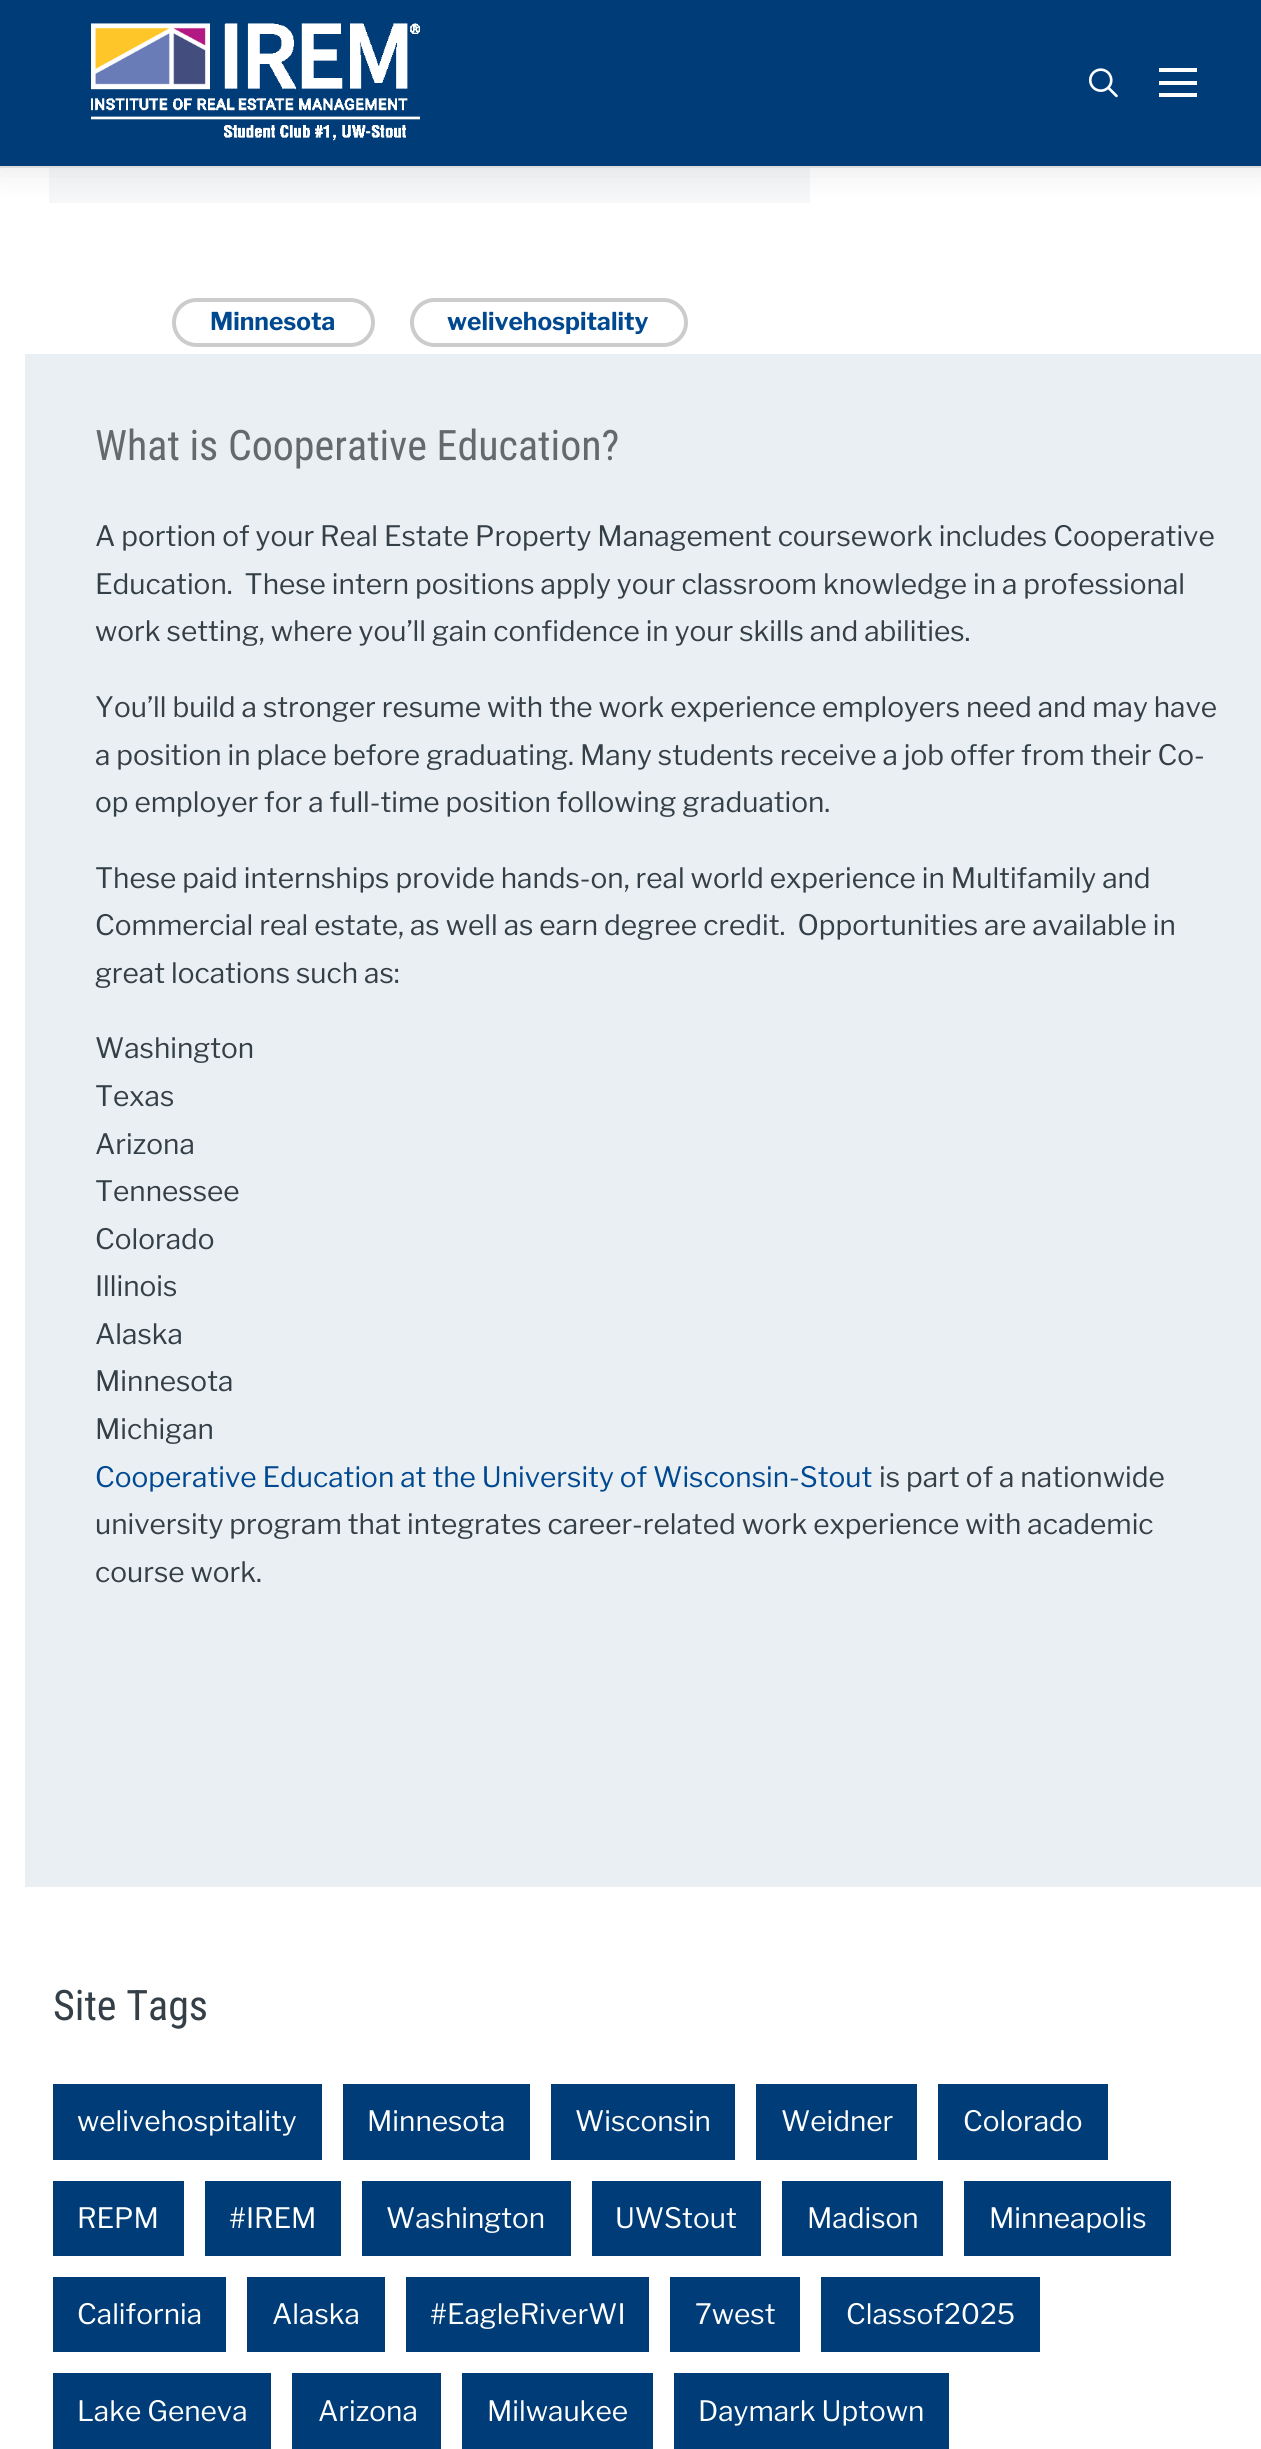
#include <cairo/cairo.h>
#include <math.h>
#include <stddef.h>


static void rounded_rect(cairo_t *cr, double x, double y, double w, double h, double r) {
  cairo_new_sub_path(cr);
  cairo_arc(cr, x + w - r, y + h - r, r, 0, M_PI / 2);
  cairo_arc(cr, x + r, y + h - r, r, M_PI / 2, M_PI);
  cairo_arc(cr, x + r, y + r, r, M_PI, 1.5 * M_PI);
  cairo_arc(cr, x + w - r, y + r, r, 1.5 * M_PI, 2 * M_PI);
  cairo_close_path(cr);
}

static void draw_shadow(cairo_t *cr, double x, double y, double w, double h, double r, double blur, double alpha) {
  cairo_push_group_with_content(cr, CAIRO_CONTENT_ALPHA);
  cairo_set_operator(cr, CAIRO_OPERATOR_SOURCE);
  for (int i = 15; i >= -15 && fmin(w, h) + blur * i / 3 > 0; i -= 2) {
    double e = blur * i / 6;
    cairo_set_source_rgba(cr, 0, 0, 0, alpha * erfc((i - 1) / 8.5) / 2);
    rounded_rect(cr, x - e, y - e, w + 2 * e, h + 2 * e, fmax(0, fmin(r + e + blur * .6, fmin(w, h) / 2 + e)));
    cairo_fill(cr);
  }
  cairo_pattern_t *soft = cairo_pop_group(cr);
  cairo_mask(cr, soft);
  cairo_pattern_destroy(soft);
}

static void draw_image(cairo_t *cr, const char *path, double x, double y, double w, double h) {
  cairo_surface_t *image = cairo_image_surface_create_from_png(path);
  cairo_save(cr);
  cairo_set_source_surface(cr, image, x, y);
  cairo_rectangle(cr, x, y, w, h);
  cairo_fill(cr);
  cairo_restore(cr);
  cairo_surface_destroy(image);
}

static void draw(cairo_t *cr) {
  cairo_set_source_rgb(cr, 1, 1, 1);
  cairo_paint(cr);
  cairo_set_source_rgb(cr, 246 / 255.0, 247 / 255.0, 249 / 255.0);
  cairo_rectangle(cr, 49, 168, 761, 35);
  cairo_fill(cr);
  cairo_set_source_rgb(cr, 0, 0, 0);
  draw_shadow(cr, -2, -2, 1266, 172, 0, 16, 0.1);
  cairo_set_source_rgb(cr, 0, 60 / 255.0, 119 / 255.0);
  cairo_rectangle(cr, 0, 0, 1261, 166);
  cairo_fill(cr);
  cairo_set_source_rgb(cr, 219 / 255.0, 220 / 255.0, 219 / 255.0);
  cairo_rectangle(cr, 0, 166, 1261, 2);
  cairo_fill(cr);
  draw_image(cr, "images/1.png", 91, 23, 329, 118);
  draw_image(cr, "images/2.png", 1089, 68, 29, 30);
  cairo_set_source_rgb(cr, 1, 1, 1);
  cairo_rectangle(cr, 1159, 68, 38, 4);
  cairo_fill(cr);
  cairo_rectangle(cr, 1159, 81, 38, 4);
  cairo_fill(cr);
  cairo_rectangle(cr, 1159, 93, 38, 4);
  cairo_fill(cr);
  rounded_rect(cr, 174, 300, 199, 45, 22.5);
  cairo_set_source_rgb(cr, 204 / 255.0, 204 / 255.0, 204 / 255.0);
  cairo_set_line_width(cr, 4);
  cairo_stroke(cr);
  rounded_rect(cr, 412, 300, 274, 45, 22.5);
  cairo_stroke(cr);
  cairo_set_source_rgb(cr, 233 / 255.0, 239 / 255.0, 242 / 255.0);
  cairo_rectangle(cr, 25, 354, 1236, 1533);
  cairo_fill(cr);
  cairo_set_source_rgb(cr, 0, 60 / 255.0, 119 / 255.0);
  cairo_rectangle(cr, 53, 2084, 269, 76);
  cairo_fill(cr);
  cairo_rectangle(cr, 343, 2084, 187, 76);
  cairo_fill(cr);
  cairo_rectangle(cr, 551, 2084, 184, 76);
  cairo_fill(cr);
  cairo_rectangle(cr, 756, 2084, 161, 76);
  cairo_fill(cr);
  cairo_rectangle(cr, 938, 2084, 170, 76);
  cairo_fill(cr);
  cairo_rectangle(cr, 53, 2181, 131, 75);
  cairo_fill(cr);
  cairo_rectangle(cr, 205, 2181, 136, 75);
  cairo_fill(cr);
  cairo_rectangle(cr, 362, 2181, 209, 75);
  cairo_fill(cr);
  cairo_rectangle(cr, 592, 2181, 169, 75);
  cairo_fill(cr);
  cairo_rectangle(cr, 782, 2181, 161, 75);
  cairo_fill(cr);
  cairo_rectangle(cr, 964, 2181, 207, 75);
  cairo_fill(cr);
  cairo_rectangle(cr, 53, 2277, 173, 75);
  cairo_fill(cr);
  cairo_rectangle(cr, 247, 2277, 138, 75);
  cairo_fill(cr);
  cairo_rectangle(cr, 406, 2277, 243, 75);
  cairo_fill(cr);
  cairo_rectangle(cr, 670, 2277, 130, 75);
  cairo_fill(cr);
  cairo_rectangle(cr, 821, 2277, 219, 75);
  cairo_fill(cr);
  cairo_rectangle(cr, 53, 2373, 218, 76);
  cairo_fill(cr);
  cairo_rectangle(cr, 292, 2373, 149, 76);
  cairo_fill(cr);
  cairo_rectangle(cr, 462, 2373, 191, 76);
  cairo_fill(cr);
  cairo_rectangle(cr, 674, 2373, 275, 76);
  cairo_fill(cr);
  cairo_select_font_face(cr, "Libre Franklin", CAIRO_FONT_SLANT_NORMAL, CAIRO_FONT_WEIGHT_BOLD);
  cairo_set_font_size(cr, 24.5);
  cairo_set_source_rgb(cr, 0, 73 / 255.0, 144 / 255.0);
  cairo_move_to(cr, 210, 330);
  cairo_show_text(cr, "Minnesota");
  cairo_move_to(cr, 447, 330);
  cairo_show_text(cr, "welivehospitality");
  cairo_select_font_face(cr, "Roboto Condensed", CAIRO_FONT_SLANT_NORMAL, CAIRO_FONT_WEIGHT_NORMAL);
  cairo_set_font_size(cr, 42);
  cairo_set_source_rgb(cr, 100 / 255.0, 106 / 255.0, 108 / 255.0);
  cairo_move_to(cr, 95, 460);
  cairo_show_text(cr, "What is Cooperative Education?");
  cairo_select_font_face(cr, "Libre Franklin", CAIRO_FONT_SLANT_NORMAL, CAIRO_FONT_WEIGHT_NORMAL);
  cairo_set_font_size(cr, 28);
  cairo_set_source_rgb(cr, 52 / 255.0, 63 / 255.0, 71 / 255.0);
  cairo_move_to(cr, 95, 546);
  cairo_show_text(cr, "A portion of your Real Estate Property Management coursework includes Cooperative");
  cairo_move_to(cr, 95, 594);
  cairo_show_text(cr, "Education.  These intern positions apply your classroom knowledge in a professional");
  cairo_move_to(cr, 95, 641);
  cairo_show_text(cr, "work setting, where you’ll gain confidence in your skills and abilities.");
  cairo_move_to(cr, 95, 717);
  cairo_show_text(cr, "You’ll build a stronger resume with the work experience employers need and may have");
  cairo_move_to(cr, 95, 765);
  cairo_show_text(cr, "a position in place before graduating. Many students receive a job offer from their Co-");
  cairo_move_to(cr, 95, 812);
  cairo_show_text(cr, "op employer for a full-time position following graduation.");
  cairo_move_to(cr, 95, 888);
  cairo_show_text(cr, "These paid internships provide hands-on, real world experience in Multifamily and");
  cairo_move_to(cr, 95, 935);
  cairo_show_text(cr, "Commercial real estate, as well as earn degree credit.  Opportunities are available in");
  cairo_move_to(cr, 95, 983);
  cairo_show_text(cr, "great locations such as:");
  cairo_move_to(cr, 95, 1058);
  cairo_show_text(cr, "Washington");
  cairo_move_to(cr, 95, 1106);
  cairo_show_text(cr, "Texas");
  cairo_move_to(cr, 95, 1154);
  cairo_show_text(cr, "Arizona");
  cairo_move_to(cr, 95, 1201);
  cairo_show_text(cr, "Tennessee");
  cairo_move_to(cr, 95, 1249);
  cairo_show_text(cr, "Colorado");
  cairo_move_to(cr, 95, 1296);
  cairo_show_text(cr, "Illinois");
  cairo_move_to(cr, 95, 1344);
  cairo_show_text(cr, "Alaska");
  cairo_move_to(cr, 95, 1391);
  cairo_show_text(cr, "Minnesota");
  cairo_move_to(cr, 95, 1439);
  cairo_show_text(cr, "Michigan");
  cairo_set_source_rgb(cr, 0, 73 / 255.0, 144 / 255.0);
  cairo_move_to(cr, 95, 1487);
  cairo_show_text(cr, "Cooperative Education at the University of Wisconsin-Stout");
  cairo_set_source_rgb(cr, 52 / 255.0, 63 / 255.0, 71 / 255.0);
  cairo_move_to(cr, 879, 1487);
  cairo_show_text(cr, "is part of a nationwide");
  cairo_move_to(cr, 95, 1534);
  cairo_show_text(cr, "university program that integrates career-related work experience with academic");
  cairo_move_to(cr, 95, 1582);
  cairo_show_text(cr, "course work.");
  cairo_select_font_face(cr, "Roboto Condensed", CAIRO_FONT_SLANT_NORMAL, CAIRO_FONT_WEIGHT_NORMAL);
  cairo_set_font_size(cr, 42);
  cairo_move_to(cr, 53, 2020);
  cairo_show_text(cr, "Site Tags");
  cairo_select_font_face(cr, "Libre Franklin", CAIRO_FONT_SLANT_NORMAL, CAIRO_FONT_WEIGHT_NORMAL);
  cairo_set_font_size(cr, 28);
  cairo_set_source_rgb(cr, 1, 1, 1);
  cairo_move_to(cr, 77, 2131);
  cairo_show_text(cr, "welivehospitality");
  cairo_move_to(cr, 367, 2131);
  cairo_show_text(cr, "Minnesota");
  cairo_move_to(cr, 575, 2131);
  cairo_show_text(cr, "Wisconsin");
  cairo_move_to(cr, 781, 2131);
  cairo_show_text(cr, "Weidner");
  cairo_move_to(cr, 963, 2131);
  cairo_show_text(cr, "Colorado");
  cairo_move_to(cr, 77, 2228);
  cairo_show_text(cr, "REPM");
  cairo_move_to(cr, 229, 2228);
  cairo_show_text(cr, "#IREM");
  cairo_move_to(cr, 386, 2228);
  cairo_show_text(cr, "Washington");
  cairo_move_to(cr, 615, 2228);
  cairo_show_text(cr, "UWStout");
  cairo_move_to(cr, 807, 2228);
  cairo_show_text(cr, "Madison");
  cairo_move_to(cr, 989, 2228);
  cairo_show_text(cr, "Minneapolis");
  cairo_move_to(cr, 77, 2324);
  cairo_show_text(cr, "California");
  cairo_move_to(cr, 272, 2324);
  cairo_show_text(cr, "Alaska");
  cairo_move_to(cr, 430, 2324);
  cairo_show_text(cr, "#EagleRiverWI");
  cairo_move_to(cr, 695, 2324);
  cairo_show_text(cr, "7west");
  cairo_move_to(cr, 846, 2324);
  cairo_show_text(cr, "Classof2025");
  cairo_move_to(cr, 77, 2421);
  cairo_show_text(cr, "Lake Geneva");
  cairo_move_to(cr, 318, 2421);
  cairo_show_text(cr, "Arizona");
  cairo_move_to(cr, 487, 2421);
  cairo_show_text(cr, "Milwaukee");
  cairo_move_to(cr, 698, 2421);
  cairo_show_text(cr, "Daymark Uptown");
}

int main(void) {
  cairo_surface_t *surface = cairo_image_surface_create(CAIRO_FORMAT_RGB24, 1261, 2449);
  cairo_t *cr = cairo_create(surface);
  cairo_font_options_t *options = cairo_font_options_create();
  cairo_font_options_set_hint_metrics(options, CAIRO_HINT_METRICS_OFF);
  cairo_font_options_set_hint_style(options, CAIRO_HINT_STYLE_NONE);
  cairo_set_font_options(cr, options);
  cairo_set_miter_limit(cr, 4);
  draw(cr);
  cairo_surface_write_to_png(surface, "out.png");
  cairo_font_options_destroy(options);
  cairo_destroy(cr);
  cairo_surface_destroy(surface);
  return 0;
}
